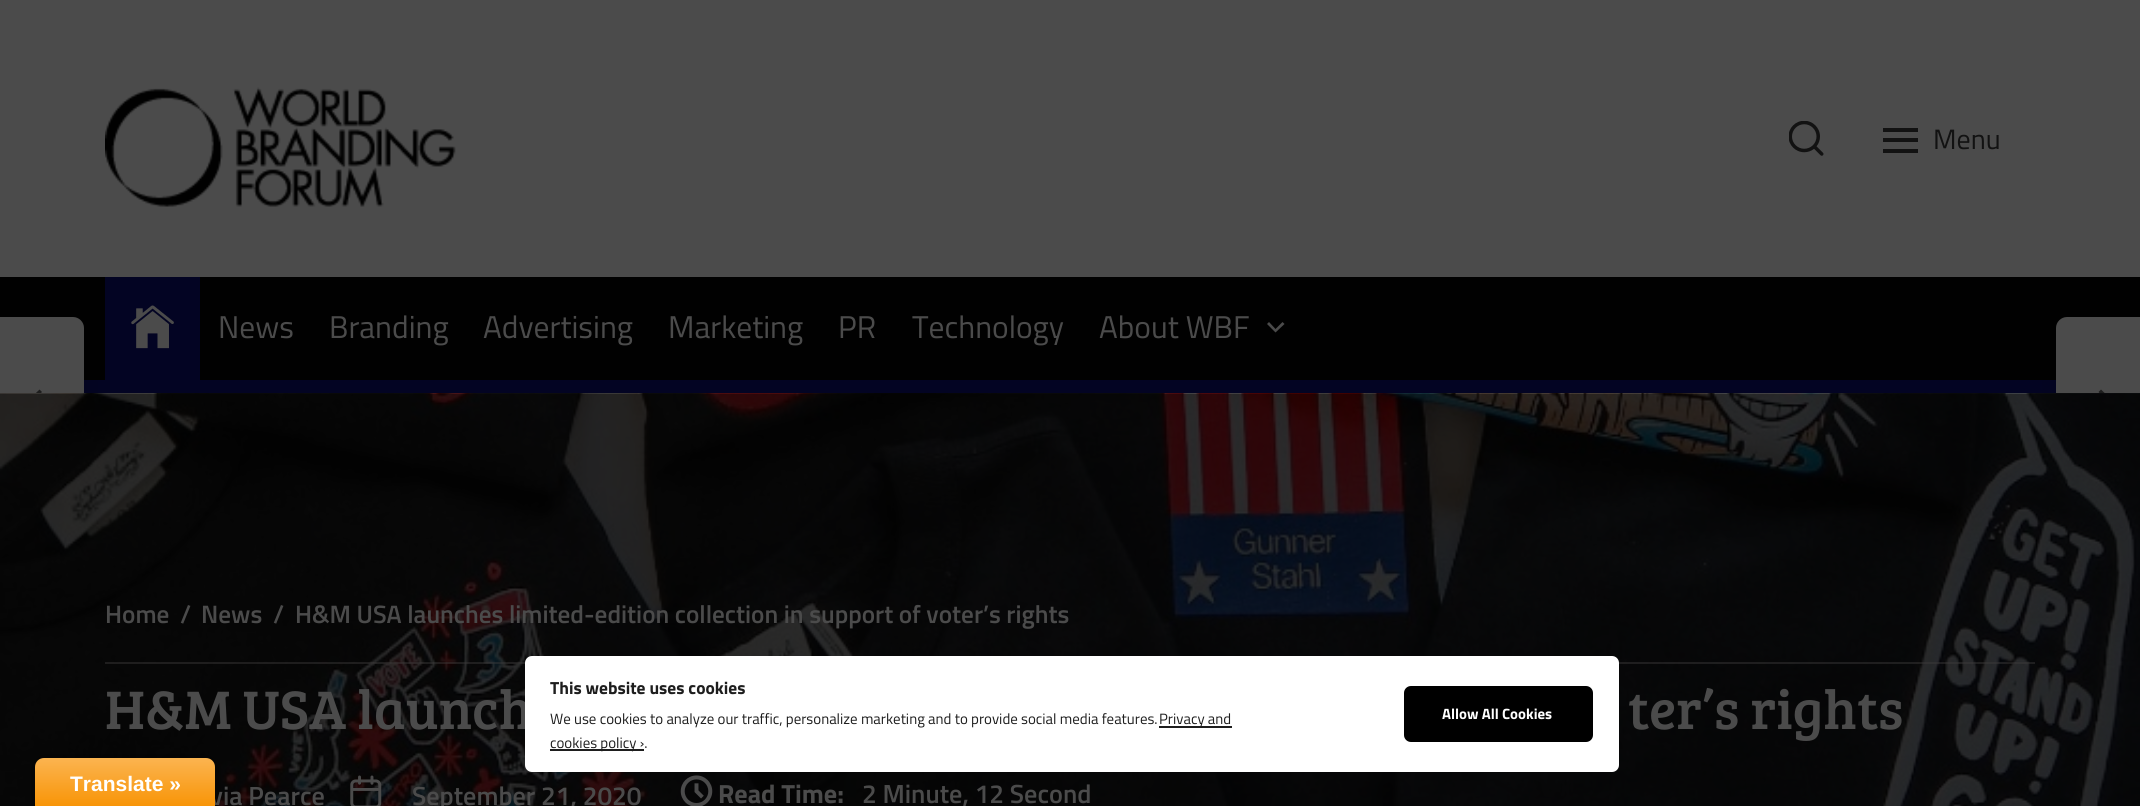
#include <cairo/cairo.h>
#include <math.h>
#include <stddef.h>


static void rounded_rect(cairo_t *cr, double x, double y, double w, double h, double r) {
  cairo_new_sub_path(cr);
  cairo_arc(cr, x + w - r, y + h - r, r, 0, M_PI / 2);
  cairo_arc(cr, x + r, y + h - r, r, M_PI / 2, M_PI);
  cairo_arc(cr, x + r, y + r, r, M_PI, 1.5 * M_PI);
  cairo_arc(cr, x + w - r, y + r, r, 1.5 * M_PI, 2 * M_PI);
  cairo_close_path(cr);
}

static void draw_shadow(cairo_t *cr, double x, double y, double w, double h, double r, double blur, double alpha) {
  cairo_push_group_with_content(cr, CAIRO_CONTENT_ALPHA);
  cairo_set_operator(cr, CAIRO_OPERATOR_SOURCE);
  for (int i = 15; i >= -15 && fmin(w, h) + blur * i / 3 > 0; i -= 2) {
    double e = blur * i / 6;
    cairo_set_source_rgba(cr, 0, 0, 0, alpha * erfc((i - 1) / 8.5) / 2);
    rounded_rect(cr, x - e, y - e, w + 2 * e, h + 2 * e, fmax(0, fmin(r + e + blur * .6, fmin(w, h) / 2 + e)));
    cairo_fill(cr);
  }
  cairo_pattern_t *soft = cairo_pop_group(cr);
  cairo_mask(cr, soft);
  cairo_pattern_destroy(soft);
}

static void draw_image(cairo_t *cr, const char *path, double x, double y, double w, double h) {
  cairo_surface_t *image = cairo_image_surface_create_from_png(path);
  cairo_save(cr);
  cairo_set_source_surface(cr, image, x, y);
  cairo_rectangle(cr, x, y, w, h);
  cairo_fill(cr);
  cairo_restore(cr);
  cairo_surface_destroy(image);
}

static void draw(cairo_t *cr) {
  cairo_pattern_t *gradient;
  cairo_set_source_rgb(cr, 75 / 255.0, 75 / 255.0, 75 / 255.0);
  cairo_paint(cr);
  draw_image(cr, "images/1.png", 105, 87, 351, 120);
  draw_image(cr, "images/2.png", 1789, 121, 35, 35);
  cairo_set_source_rgb(cr, 18 / 255.0, 18 / 255.0, 18 / 255.0);
  cairo_rectangle(cr, 1883, 128, 35, 4);
  cairo_fill(cr);
  cairo_rectangle(cr, 1883, 138, 35, 4);
  cairo_fill(cr);
  cairo_rectangle(cr, 1883, 149, 35, 4);
  cairo_fill(cr);
  cairo_set_source_rgb(cr, 1 / 255.0, 1 / 255.0, 1 / 255.0);
  cairo_rectangle(cr, 0, 277, 2140, 103);
  cairo_fill(cr);
  cairo_set_source_rgb(cr, 3 / 255.0, 4 / 255.0, 35 / 255.0);
  cairo_rectangle(cr, 105, 277, 95, 103);
  cairo_fill(cr);
  draw_image(cr, "images/3.png", 131, 305, 43, 44);
  cairo_set_source_rgb(cr, 75 / 255.0, 75 / 255.0, 75 / 255.0);
  cairo_set_fill_rule(cr, CAIRO_FILL_RULE_EVEN_ODD);
  cairo_new_path(cr);
  cairo_move_to(cr, 1275.5, 329);
  cairo_line_to(cr, 1282.5, 322);
  cairo_line_to(cr, 1284.5, 324);
  cairo_line_to(cr, 1275.5, 332.5);
  cairo_line_to(cr, 1267, 324);
  cairo_line_to(cr, 1269, 322);
  cairo_close_path(cr);
  cairo_fill(cr);
  cairo_set_source_rgb(cr, 3 / 255.0, 4 / 255.0, 35 / 255.0);
  cairo_rectangle(cr, 84, 380, 1972, 13);
  cairo_fill(cr);
  cairo_set_source_rgb(cr, 1 / 255.0, 1 / 255.0, 1 / 255.0);
  draw_shadow(cr, 0, 317, 84, 175, 11, 17.5, 0.2);
  cairo_set_source_rgb(cr, 75 / 255.0, 75 / 255.0, 75 / 255.0);
  cairo_new_path(cr);
  cairo_move_to(cr, 0, 317);
  cairo_line_to(cr, 73, 317);
  cairo_curve_to(cr, 79, 317, 84, 322, 84, 328);
  cairo_line_to(cr, 84, 481);
  cairo_curve_to(cr, 84, 487, 79, 492, 73, 492);
  cairo_line_to(cr, 0, 492);
  cairo_close_path(cr);
  cairo_fill(cr);
  cairo_set_source_rgb(cr, 30 / 255.0, 30 / 255.0, 30 / 255.0);
  cairo_set_fill_rule(cr, CAIRO_FILL_RULE_WINDING);
  cairo_new_path(cr);
  cairo_move_to(cr, 31, 402.5);
  cairo_line_to(cr, 42, 392);
  cairo_line_to(cr, 39.5, 389.5);
  cairo_line_to(cr, 24.5, 404);
  cairo_line_to(cr, 39.5, 419);
  cairo_line_to(cr, 42, 416.5);
  cairo_line_to(cr, 31, 406);
  cairo_line_to(cr, 59.5, 406);
  cairo_line_to(cr, 59.5, 402.5);
  cairo_close_path(cr);
  cairo_fill(cr);
  cairo_set_source_rgb(cr, 1 / 255.0, 1 / 255.0, 1 / 255.0);
  draw_shadow(cr, 2056, 317, 84, 175, 11, 17.5, 0.2);
  cairo_set_source_rgb(cr, 75 / 255.0, 75 / 255.0, 75 / 255.0);
  cairo_new_path(cr);
  cairo_move_to(cr, 2067, 317);
  cairo_line_to(cr, 2140, 317);
  cairo_line_to(cr, 2140, 492);
  cairo_line_to(cr, 2067, 492);
  cairo_curve_to(cr, 2061, 492, 2056, 487, 2056, 481);
  cairo_line_to(cr, 2056, 328);
  cairo_curve_to(cr, 2056, 322, 2061, 317, 2067, 317);
  cairo_close_path(cr);
  cairo_fill(cr);
  cairo_set_source_rgb(cr, 30 / 255.0, 30 / 255.0, 30 / 255.0);
  cairo_new_path(cr);
  cairo_move_to(cr, 2109, 402.5);
  cairo_line_to(cr, 2098.5, 392);
  cairo_line_to(cr, 2101, 389.5);
  cairo_line_to(cr, 2116, 404);
  cairo_line_to(cr, 2101, 419);
  cairo_line_to(cr, 2098.5, 416.5);
  cairo_line_to(cr, 2109, 406);
  cairo_line_to(cr, 2081, 406);
  cairo_line_to(cr, 2081, 402.5);
  cairo_close_path(cr);
  cairo_fill(cr);
  draw_image(cr, "images/4.png", 0, 393, 2140, 413);
  cairo_set_source_rgba(cr, 63 / 255.0, 61 / 255.0, 61 / 255.0, 0.43);
  cairo_rectangle(cr, 105, 662, 1930, 2);
  cairo_fill(cr);
  draw_image(cr, "images/5.png", 350, 775, 32, 31);
  draw_image(cr, "images/6.png", 680, 775, 33, 31);
  cairo_set_source_rgb(cr, 0, 0, 0);
  draw_shadow(cr, 35, 758, 180, 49, 9, 8, 0.3);
  cairo_select_font_face(cr, "Titillium Web", CAIRO_FONT_SLANT_NORMAL, CAIRO_FONT_WEIGHT_NORMAL);
  cairo_set_font_size(cr, 28);
  cairo_set_source_rgb(cr, 18 / 255.0, 18 / 255.0, 18 / 255.0);
  cairo_move_to(cr, 1933, 149);
  cairo_show_text(cr, "Menu");
  cairo_set_font_size(cr, 31.5);
  cairo_set_source_rgb(cr, 75 / 255.0, 75 / 255.0, 75 / 255.0);
  cairo_move_to(cr, 218, 338);
  cairo_show_text(cr, "News");
  cairo_move_to(cr, 329, 338);
  cairo_show_text(cr, "Branding");
  cairo_move_to(cr, 483, 338);
  cairo_show_text(cr, "Advertising");
  cairo_move_to(cr, 668, 338);
  cairo_show_text(cr, "Marketing");
  cairo_move_to(cr, 838, 338);
  cairo_show_text(cr, "PR");
  cairo_move_to(cr, 912, 338);
  cairo_show_text(cr, "Technology");
  cairo_move_to(cr, 1099, 338);
  cairo_show_text(cr, "About WBF");
  cairo_select_font_face(cr, "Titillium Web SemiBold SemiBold", CAIRO_FONT_SLANT_NORMAL, CAIRO_FONT_WEIGHT_NORMAL);
  cairo_set_font_size(cr, 25.2);
  cairo_move_to(cr, 105, 623);
  cairo_show_text(cr, "Home");
  cairo_move_to(cr, 180, 623);
  cairo_show_text(cr, "/");
  cairo_move_to(cr, 201, 623);
  cairo_show_text(cr, "News");
  cairo_move_to(cr, 273, 623);
  cairo_show_text(cr, "/");
  cairo_move_to(cr, 295, 623);
  cairo_show_text(cr, "H&M USA launches limited-edition collection in support of voter’s rights");
  cairo_select_font_face(cr, "Bree Serif", CAIRO_FONT_SLANT_NORMAL, CAIRO_FONT_WEIGHT_NORMAL);
  cairo_set_font_size(cr, 56);
  cairo_move_to(cr, 105, 729);
  cairo_show_text(cr, "H&M USA launch");
  cairo_move_to(cr, 1628, 729);
  cairo_show_text(cr, "ter’s rights");
  cairo_select_font_face(cr, "Titillium Web SemiBold SemiBold", CAIRO_FONT_SLANT_NORMAL, CAIRO_FONT_WEIGHT_NORMAL);
  cairo_set_font_size(cr, 26.25);
  cairo_move_to(cr, 210, 805);
  cairo_show_text(cr, "via Pearce");
  cairo_move_to(cr, 412, 805);
  cairo_show_text(cr, "September 21, 2020");
  cairo_select_font_face(cr, "Titillium Web", CAIRO_FONT_SLANT_NORMAL, CAIRO_FONT_WEIGHT_BOLD);
  cairo_move_to(cr, 718, 803);
  cairo_show_text(cr, "Read Time:");
  cairo_select_font_face(cr, "Titillium Web SemiBold SemiBold", CAIRO_FONT_SLANT_NORMAL, CAIRO_FONT_WEIGHT_NORMAL);
  cairo_move_to(cr, 862, 803);
  cairo_show_text(cr, "2 Minute, 12 Second");
  cairo_set_source_rgb(cr, 1, 1, 1);
  rounded_rect(cr, 525, 656, 1094, 116, 7);
  cairo_fill(cr);
  cairo_select_font_face(cr, "Titillium Web", CAIRO_FONT_SLANT_NORMAL, CAIRO_FONT_WEIGHT_BOLD);
  cairo_set_font_size(cr, 17.5);
  cairo_set_source_rgb(cr, 30 / 255.0, 30 / 255.0, 30 / 255.0);
  cairo_move_to(cr, 550, 694);
  cairo_show_text(cr, "This website uses cookies");
  cairo_select_font_face(cr, "Titillium Web", CAIRO_FONT_SLANT_NORMAL, CAIRO_FONT_WEIGHT_NORMAL);
  cairo_set_font_size(cr, 14.9);
  cairo_move_to(cr, 550, 724);
  cairo_show_text(cr, "We use cookies to analyze our traffic, personalize marketing and to provide social media features.");
  cairo_rectangle(cr, 1159, 726, 73, 2);
  cairo_fill(cr);
  cairo_move_to(cr, 1159, 724);
  cairo_show_text(cr, "Privacy and");
  cairo_rectangle(cr, 550, 749, 94, 2);
  cairo_fill(cr);
  cairo_move_to(cr, 550, 748);
  cairo_show_text(cr, "cookies policy ›.");
  cairo_set_source_rgb(cr, 0, 0, 0);
  rounded_rect(cr, 1405, 687, 187, 54, 6);
  cairo_fill_preserve(cr);
  cairo_stroke(cr);
  cairo_select_font_face(cr, "Titillium Web", CAIRO_FONT_SLANT_NORMAL, CAIRO_FONT_WEIGHT_BOLD);
  cairo_set_source_rgb(cr, 1, 1, 1);
  cairo_move_to(cr, 1442, 719);
  cairo_show_text(cr, "Allow All Cookies");
  gradient = cairo_pattern_create_linear(125, 758, 125, 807);
  cairo_pattern_add_color_stop_rgba(gradient, 0, 251 / 255.0, 180 / 255.0, 80 / 255.0, 1);
  cairo_pattern_add_color_stop_rgba(gradient, 1, 248 / 255.0, 148 / 255.0, 6 / 255.0, 1);
  cairo_set_source(cr, gradient);
  cairo_pattern_destroy(gradient);
  cairo_new_path(cr);
  cairo_move_to(cr, 44, 758);
  cairo_line_to(cr, 206, 758);
  cairo_curve_to(cr, 211, 758, 215, 762, 215, 767);
  cairo_line_to(cr, 215, 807);
  cairo_line_to(cr, 35, 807);
  cairo_line_to(cr, 35, 767);
  cairo_curve_to(cr, 35, 762, 39, 758, 44, 758);
  cairo_close_path(cr);
  cairo_fill(cr);
  cairo_select_font_face(cr, "Liberation Sans", CAIRO_FONT_SLANT_NORMAL, CAIRO_FONT_WEIGHT_BOLD);
  cairo_set_font_size(cr, 21);
  cairo_set_source_rgb(cr, 1, 1, 1);
  cairo_move_to(cr, 70, 791);
  cairo_show_text(cr, "Translate »");
}

int main(void) {
  cairo_surface_t *surface = cairo_image_surface_create(CAIRO_FORMAT_RGB24, 2140, 806);
  cairo_t *cr = cairo_create(surface);
  cairo_font_options_t *options = cairo_font_options_create();
  cairo_font_options_set_hint_metrics(options, CAIRO_HINT_METRICS_OFF);
  cairo_font_options_set_hint_style(options, CAIRO_HINT_STYLE_NONE);
  cairo_set_font_options(cr, options);
  cairo_set_miter_limit(cr, 4);
  draw(cr);
  cairo_surface_write_to_png(surface, "out.png");
  cairo_font_options_destroy(options);
  cairo_destroy(cr);
  cairo_surface_destroy(surface);
  return 0;
}
